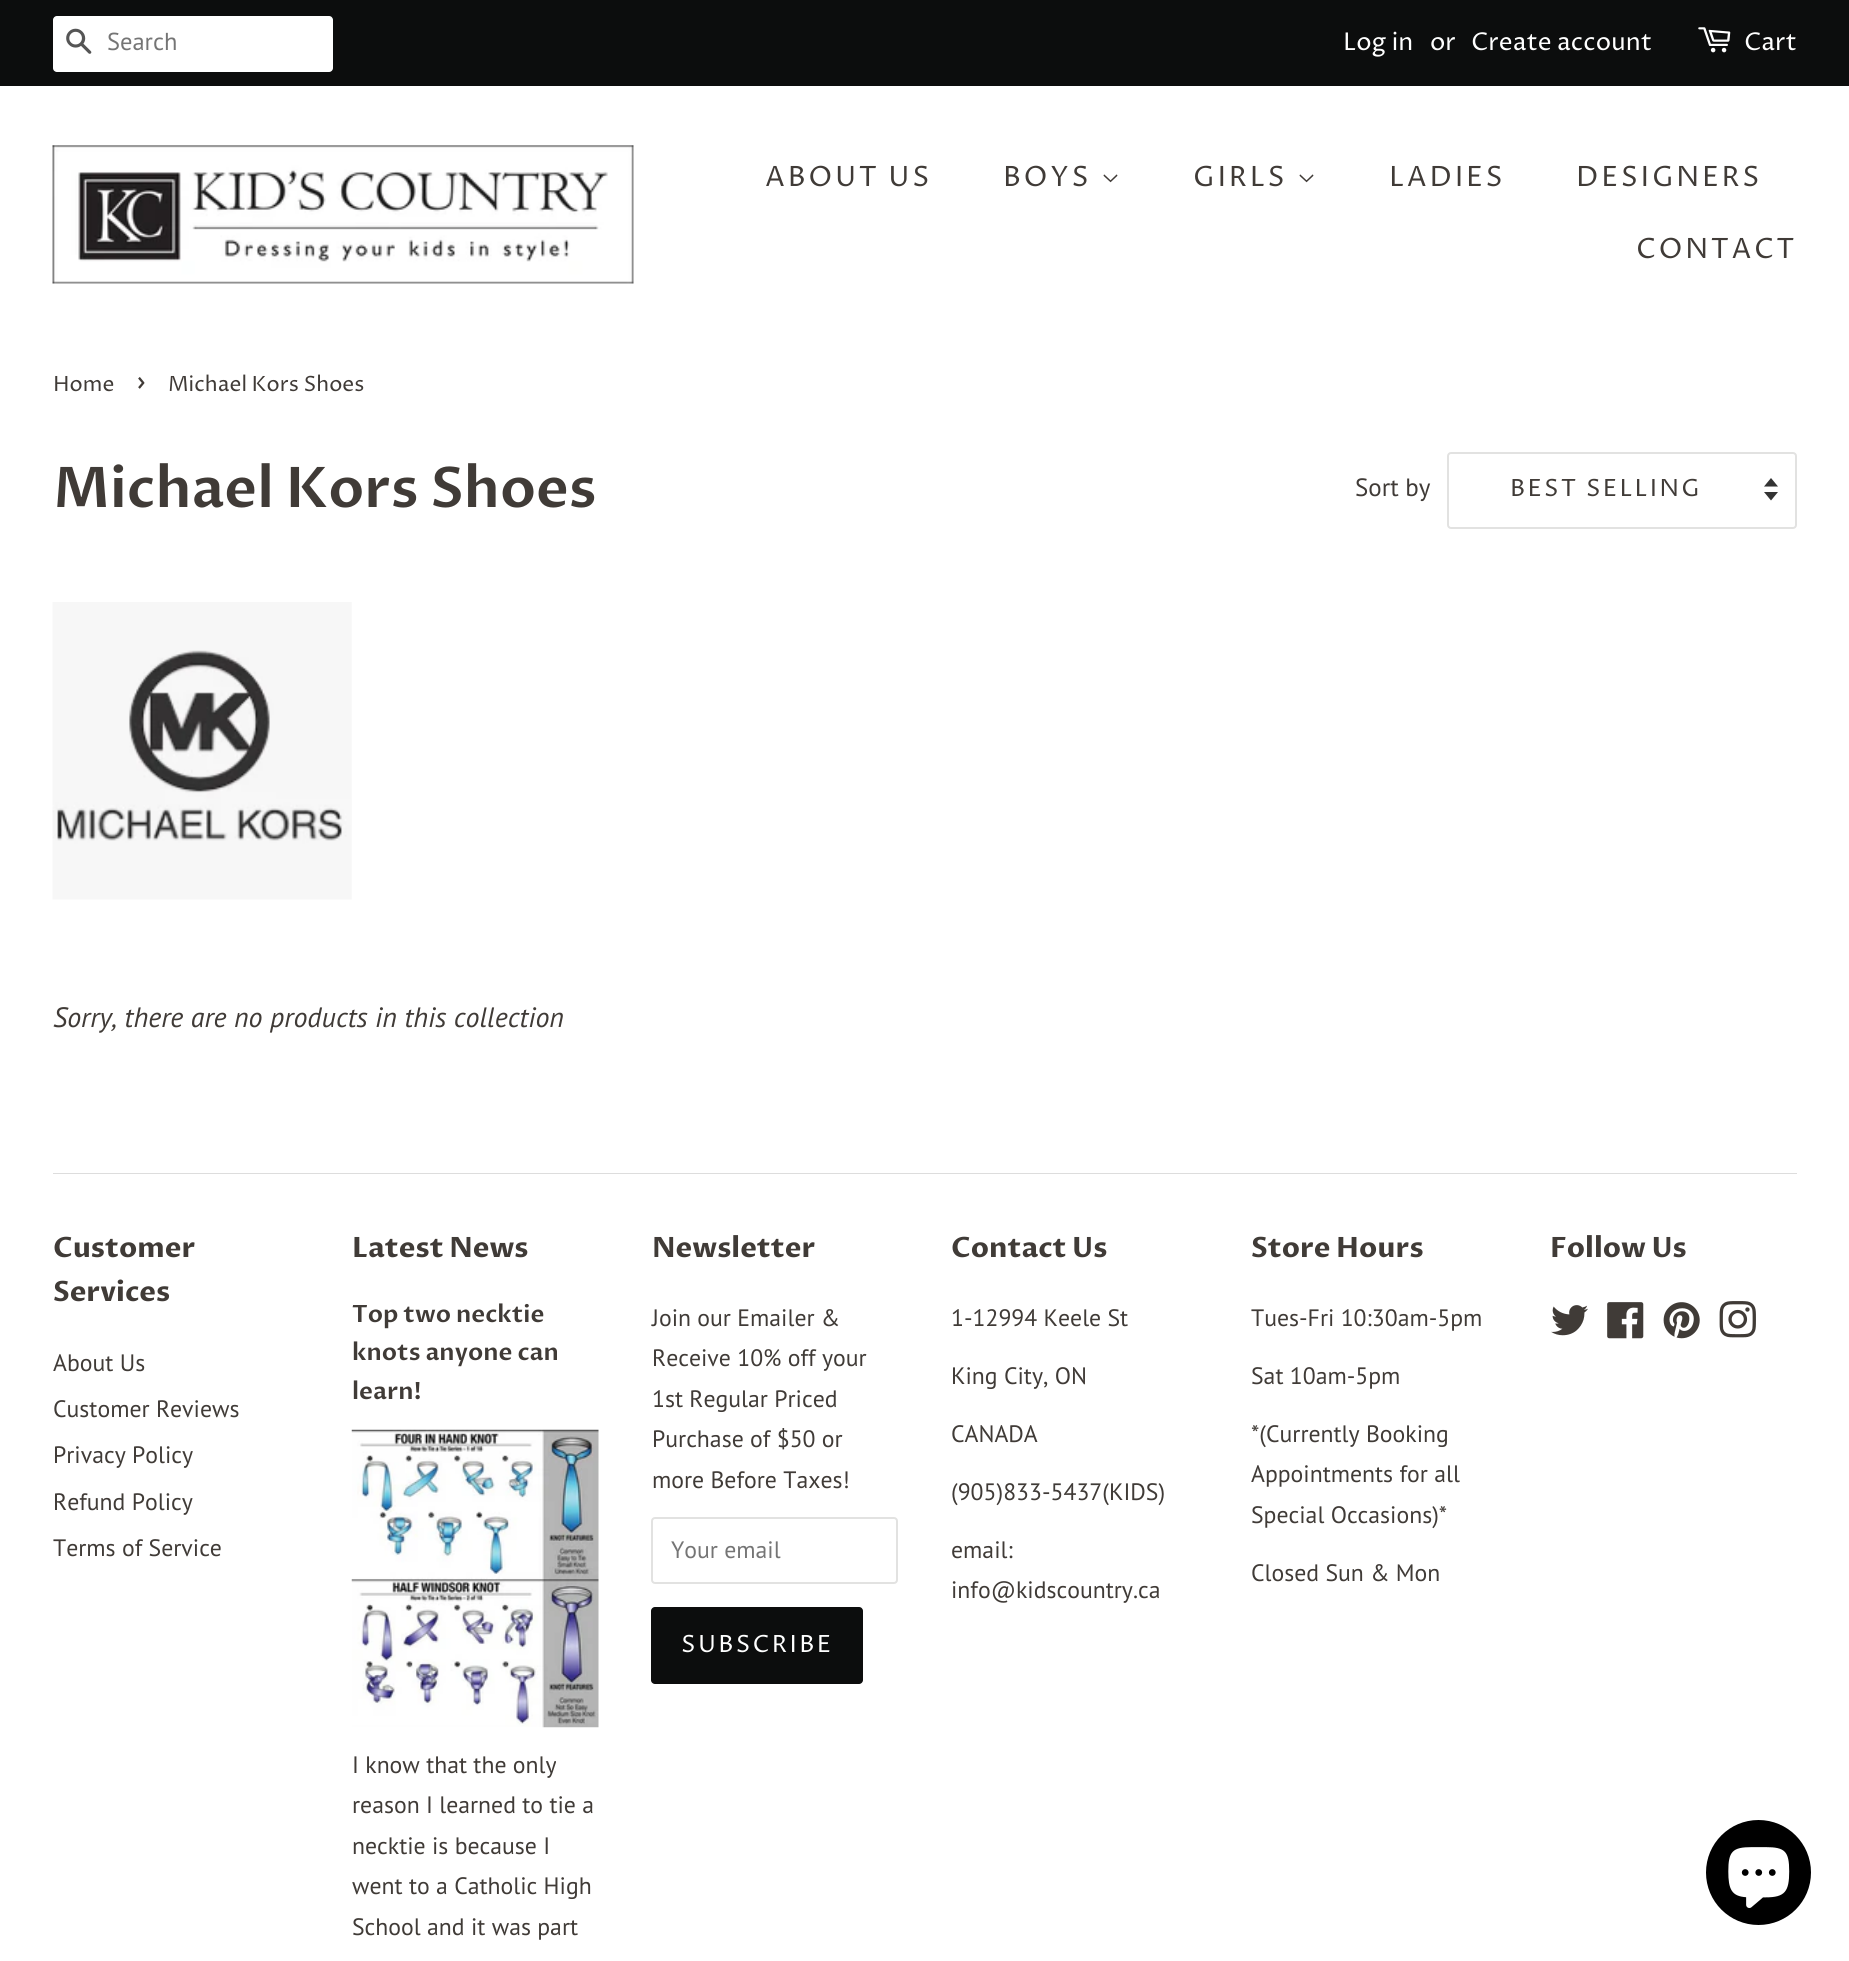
#include <cairo/cairo.h>
#include <math.h>
#include <stddef.h>


static void draw_spaced(cairo_t *cr, double x, double y, const char *s, double letter, double word) {
  cairo_move_to(cr, x, y);
  while (*s) {
    char ch[5] = {0};
    int n = 0;
    do ch[n++] = *s++; while ((*s & 0xC0) == 0x80);
    cairo_show_text(cr, ch);
    cairo_rel_move_to(cr, letter + word * (*ch == ' '), 0);
  }
}

static void rounded_rect(cairo_t *cr, double x, double y, double w, double h, double r) {
  cairo_new_sub_path(cr);
  cairo_arc(cr, x + w - r, y + h - r, r, 0, M_PI / 2);
  cairo_arc(cr, x + r, y + h - r, r, M_PI / 2, M_PI);
  cairo_arc(cr, x + r, y + r, r, M_PI, 1.5 * M_PI);
  cairo_arc(cr, x + w - r, y + r, r, 1.5 * M_PI, 2 * M_PI);
  cairo_close_path(cr);
}

static void draw_image(cairo_t *cr, const char *path, double x, double y, double w, double h) {
  cairo_surface_t *image = cairo_image_surface_create_from_png(path);
  cairo_save(cr);
  cairo_set_source_surface(cr, image, x, y);
  cairo_rectangle(cr, x, y, w, h);
  cairo_fill(cr);
  cairo_restore(cr);
  cairo_surface_destroy(image);
}

static void draw(cairo_t *cr) {
  cairo_set_source_rgb(cr, 1, 1, 1);
  cairo_paint(cr);
  cairo_set_source_rgb(cr, 12 / 255.0, 13 / 255.0, 13 / 255.0);
  cairo_rectangle(cr, 0, 0, 1849, 86);
  cairo_fill(cr);
  cairo_set_source_rgb(cr, 1, 1, 1);
  rounded_rect(cr, 53, 16, 280, 56, 4);
  cairo_fill(cr);
  draw_image(cr, "images/1.png", 66, 28, 26, 26);
  draw_image(cr, "images/2.png", 1698, 27, 33, 26);
  draw_image(cr, "images/3.png", 52, 145, 582, 139);
  draw_image(cr, "images/4.png", 1103, 174, 15, 9);
  draw_image(cr, "images/4.png", 1299, 174, 15, 9);
  cairo_set_source_rgb(cr, 51 / 255.0, 51 / 255.0, 51 / 255.0);
  cairo_new_path(cr);
  cairo_move_to(cr, 1764, 492);
  cairo_line_to(cr, 1771, 500.5);
  cairo_line_to(cr, 1778, 492);
  cairo_close_path(cr);
  cairo_move_to(cr, 1771, 478);
  cairo_line_to(cr, 1764, 486.5);
  cairo_line_to(cr, 1778, 486.5);
  cairo_close_path(cr);
  cairo_fill(cr);
  rounded_rect(cr, 1448, 453, 348, 75, 3);
  cairo_set_source_rgb(cr, 226 / 255.0, 226 / 255.0, 225 / 255.0);
  cairo_stroke(cr);
  draw_image(cr, "images/5.png", 52, 602, 300, 298);
  cairo_set_source_rgb(cr, 221 / 255.0, 221 / 255.0, 221 / 255.0);
  cairo_rectangle(cr, 53, 1173, 1744, 1);
  cairo_fill(cr);
  draw_image(cr, "images/6.png", 351, 1429, 248, 299);
  rounded_rect(cr, 652, 1518, 245, 65, 3);
  cairo_set_source_rgb(cr, 226 / 255.0, 226 / 255.0, 225 / 255.0);
  cairo_stroke(cr);
  cairo_set_source_rgb(cr, 12 / 255.0, 13 / 255.0, 13 / 255.0);
  rounded_rect(cr, 651, 1607, 212, 77, 4);
  cairo_fill(cr);
  draw_image(cr, "images/7.png", 1551, 1305, 37, 31);
  draw_image(cr, "images/8.png", 1607, 1302, 37, 37);
  draw_image(cr, "images/9.png", 1663, 1302, 37, 37);
  draw_image(cr, "images/10.png", 1719, 1301, 37, 37);
  cairo_set_source_rgb(cr, 0, 0, 0);
  cairo_arc(cr, 1758.5, 1872.5, 52.5, 0, 2 * M_PI);
  cairo_fill(cr);
  draw_image(cr, "images/11.png", 1728, 1847, 62, 61);
  cairo_select_font_face(cr, "PT Sans", CAIRO_FONT_SLANT_NORMAL, CAIRO_FONT_WEIGHT_NORMAL);
  cairo_set_font_size(cr, 24.5);
  cairo_set_source_rgb(cr, 117 / 255.0, 117 / 255.0, 117 / 255.0);
  cairo_move_to(cr, 107, 50);
  cairo_show_text(cr, "Search");
  cairo_select_font_face(cr, "Proza Libre", CAIRO_FONT_SLANT_NORMAL, CAIRO_FONT_WEIGHT_NORMAL);
  cairo_set_source_rgb(cr, 1, 1, 1);
  cairo_move_to(cr, 1343, 50);
  cairo_show_text(cr, "Log in");
  cairo_move_to(cr, 1430, 50);
  cairo_show_text(cr, "or");
  cairo_move_to(cr, 1471, 50);
  cairo_show_text(cr, "Create account");
  cairo_move_to(cr, 1744, 50);
  cairo_show_text(cr, "Cart");
  cairo_set_font_size(cr, 28);
  cairo_set_source_rgb(cr, 64 / 255.0, 59 / 255.0, 55 / 255.0);
  draw_spaced(cr, 765, 186, "ABOUT US", 2.75, 0);
  draw_spaced(cr, 1003, 186, "BOYS", 2.75, 0);
  draw_spaced(cr, 1193, 186, "GIRLS", 2.75, 0);
  draw_spaced(cr, 1389, 186, "LADIES", 2.75, 0);
  draw_spaced(cr, 1576, 186, "DESIGNERS", 2.75, 0);
  draw_spaced(cr, 1636, 258, "CONTACT", 2.75, 0);
  cairo_set_font_size(cr, 21);
  cairo_move_to(cr, 53, 391);
  cairo_show_text(cr, "Home");
  cairo_set_font_size(cr, 29);
  cairo_move_to(cr, 136, 391);
  cairo_show_text(cr, "›");
  cairo_set_font_size(cr, 21);
  cairo_move_to(cr, 168, 391);
  cairo_show_text(cr, "Michael Kors Shoes");
  cairo_select_font_face(cr, "Proza Libre SemiBold", CAIRO_FONT_SLANT_NORMAL, CAIRO_FONT_WEIGHT_NORMAL);
  cairo_set_font_size(cr, 56);
  cairo_move_to(cr, 53, 507);
  cairo_show_text(cr, "Michael Kors Shoes");
  cairo_select_font_face(cr, "PT Sans", CAIRO_FONT_SLANT_NORMAL, CAIRO_FONT_WEIGHT_NORMAL);
  cairo_set_font_size(cr, 25);
  cairo_move_to(cr, 1355, 496);
  cairo_show_text(cr, "Sort by");
  cairo_select_font_face(cr, "Proza Libre", CAIRO_FONT_SLANT_NORMAL, CAIRO_FONT_WEIGHT_NORMAL);
  cairo_set_font_size(cr, 23.75);
  draw_spaced(cr, 1510, 496, "BEST SELLING", 2.4, 0);
  cairo_select_font_face(cr, "PT Sans", CAIRO_FONT_SLANT_ITALIC, CAIRO_FONT_WEIGHT_NORMAL);
  cairo_set_font_size(cr, 28);
  cairo_move_to(cr, 53, 1027);
  cairo_show_text(cr, "Sorry, there are no products in this collection");
  cairo_select_font_face(cr, "Proza Libre", CAIRO_FONT_SLANT_NORMAL, CAIRO_FONT_WEIGHT_BOLD);
  cairo_move_to(cr, 53, 1257);
  cairo_show_text(cr, "Customer");
  cairo_move_to(cr, 53, 1301);
  cairo_show_text(cr, "Services");
  cairo_select_font_face(cr, "PT Sans", CAIRO_FONT_SLANT_NORMAL, CAIRO_FONT_WEIGHT_NORMAL);
  cairo_set_font_size(cr, 23.75);
  cairo_move_to(cr, 53, 1371);
  cairo_show_text(cr, "About Us");
  cairo_move_to(cr, 53, 1417);
  cairo_show_text(cr, "Customer Reviews");
  cairo_move_to(cr, 53, 1463);
  cairo_show_text(cr, "Privacy Policy");
  cairo_move_to(cr, 53, 1510);
  cairo_show_text(cr, "Refund Policy");
  cairo_move_to(cr, 53, 1556);
  cairo_show_text(cr, "Terms of Service");
  cairo_select_font_face(cr, "Proza Libre", CAIRO_FONT_SLANT_NORMAL, CAIRO_FONT_WEIGHT_BOLD);
  cairo_set_font_size(cr, 28);
  cairo_move_to(cr, 352, 1257);
  cairo_show_text(cr, "Latest News");
  cairo_select_font_face(cr, "Proza Libre SemiBold", CAIRO_FONT_SLANT_NORMAL, CAIRO_FONT_WEIGHT_NORMAL);
  cairo_set_font_size(cr, 23.75);
  cairo_move_to(cr, 352, 1322);
  cairo_show_text(cr, "Top two necktie");
  cairo_move_to(cr, 352, 1360);
  cairo_show_text(cr, "knots anyone can");
  cairo_move_to(cr, 352, 1399);
  cairo_show_text(cr, "learn!");
  cairo_select_font_face(cr, "PT Sans", CAIRO_FONT_SLANT_NORMAL, CAIRO_FONT_WEIGHT_NORMAL);
  cairo_move_to(cr, 352, 1773);
  cairo_show_text(cr, "I know that the only");
  cairo_move_to(cr, 352, 1813);
  cairo_show_text(cr, "reason I learned to tie a");
  cairo_move_to(cr, 352, 1854);
  cairo_show_text(cr, "necktie is because I");
  cairo_move_to(cr, 352, 1894);
  cairo_show_text(cr, "went to a Catholic High");
  cairo_move_to(cr, 352, 1935);
  cairo_show_text(cr, "School and it was part");
  cairo_select_font_face(cr, "Proza Libre", CAIRO_FONT_SLANT_NORMAL, CAIRO_FONT_WEIGHT_BOLD);
  cairo_set_font_size(cr, 28);
  cairo_move_to(cr, 652, 1257);
  cairo_show_text(cr, "Newsletter");
  cairo_select_font_face(cr, "PT Sans", CAIRO_FONT_SLANT_NORMAL, CAIRO_FONT_WEIGHT_NORMAL);
  cairo_set_font_size(cr, 23.75);
  cairo_move_to(cr, 652, 1326);
  cairo_show_text(cr, "Join our Emailer &");
  cairo_move_to(cr, 652, 1366);
  cairo_show_text(cr, "Receive 10% off your");
  cairo_move_to(cr, 652, 1407);
  cairo_show_text(cr, "1st Regular Priced");
  cairo_move_to(cr, 652, 1447);
  cairo_show_text(cr, "Purchase of $50 or");
  cairo_move_to(cr, 652, 1488);
  cairo_show_text(cr, "more Before Taxes!");
  cairo_set_source_rgb(cr, 117 / 255.0, 117 / 255.0, 117 / 255.0);
  cairo_move_to(cr, 671, 1558);
  cairo_show_text(cr, "Your email");
  cairo_select_font_face(cr, "Proza Libre", CAIRO_FONT_SLANT_NORMAL, CAIRO_FONT_WEIGHT_NORMAL);
  cairo_set_source_rgb(cr, 1, 1, 1);
  draw_spaced(cr, 681, 1652, "SUBSCRIBE", 2.4, 0);
  cairo_select_font_face(cr, "Proza Libre", CAIRO_FONT_SLANT_NORMAL, CAIRO_FONT_WEIGHT_BOLD);
  cairo_set_font_size(cr, 28);
  cairo_set_source_rgb(cr, 64 / 255.0, 59 / 255.0, 55 / 255.0);
  cairo_move_to(cr, 951, 1257);
  cairo_show_text(cr, "Contact Us");
  cairo_select_font_face(cr, "PT Sans", CAIRO_FONT_SLANT_NORMAL, CAIRO_FONT_WEIGHT_NORMAL);
  cairo_set_font_size(cr, 23.75);
  cairo_move_to(cr, 951, 1326);
  cairo_show_text(cr, "1-12994 Keele St");
  cairo_move_to(cr, 951, 1384);
  cairo_show_text(cr, "King City, ON");
  cairo_move_to(cr, 951, 1442);
  cairo_show_text(cr, "CANADA");
  cairo_move_to(cr, 951, 1500);
  cairo_show_text(cr, "(905)833-5437(KIDS)");
  cairo_move_to(cr, 951, 1558);
  cairo_show_text(cr, "email:");
  cairo_move_to(cr, 951, 1598);
  cairo_show_text(cr, "info@kidscountry.ca");
  cairo_select_font_face(cr, "Proza Libre", CAIRO_FONT_SLANT_NORMAL, CAIRO_FONT_WEIGHT_BOLD);
  cairo_set_font_size(cr, 28);
  cairo_move_to(cr, 1251, 1257);
  cairo_show_text(cr, "Store Hours");
  cairo_select_font_face(cr, "PT Sans", CAIRO_FONT_SLANT_NORMAL, CAIRO_FONT_WEIGHT_NORMAL);
  cairo_set_font_size(cr, 23.75);
  cairo_move_to(cr, 1251, 1326);
  cairo_show_text(cr, "Tues-Fri 10:30am-5pm");
  cairo_move_to(cr, 1251, 1384);
  cairo_show_text(cr, "Sat 10am-5pm");
  cairo_move_to(cr, 1251, 1442);
  cairo_show_text(cr, "*(Currently Booking");
  cairo_move_to(cr, 1251, 1482);
  cairo_show_text(cr, "Appointments for all");
  cairo_move_to(cr, 1251, 1523);
  cairo_show_text(cr, "Special Occasions)*");
  cairo_move_to(cr, 1251, 1581);
  cairo_show_text(cr, "Closed Sun & Mon");
  cairo_select_font_face(cr, "Proza Libre", CAIRO_FONT_SLANT_NORMAL, CAIRO_FONT_WEIGHT_BOLD);
  cairo_set_font_size(cr, 28);
  cairo_move_to(cr, 1550, 1257);
  cairo_show_text(cr, "Follow Us");
}

int main(void) {
  cairo_surface_t *surface = cairo_image_surface_create(CAIRO_FORMAT_RGB24, 1849, 1961);
  cairo_t *cr = cairo_create(surface);
  cairo_font_options_t *options = cairo_font_options_create();
  cairo_font_options_set_hint_metrics(options, CAIRO_HINT_METRICS_OFF);
  cairo_font_options_set_hint_style(options, CAIRO_HINT_STYLE_NONE);
  cairo_set_font_options(cr, options);
  cairo_set_miter_limit(cr, 4);
  draw(cr);
  cairo_surface_write_to_png(surface, "out.png");
  cairo_font_options_destroy(options);
  cairo_destroy(cr);
  cairo_surface_destroy(surface);
  return 0;
}
